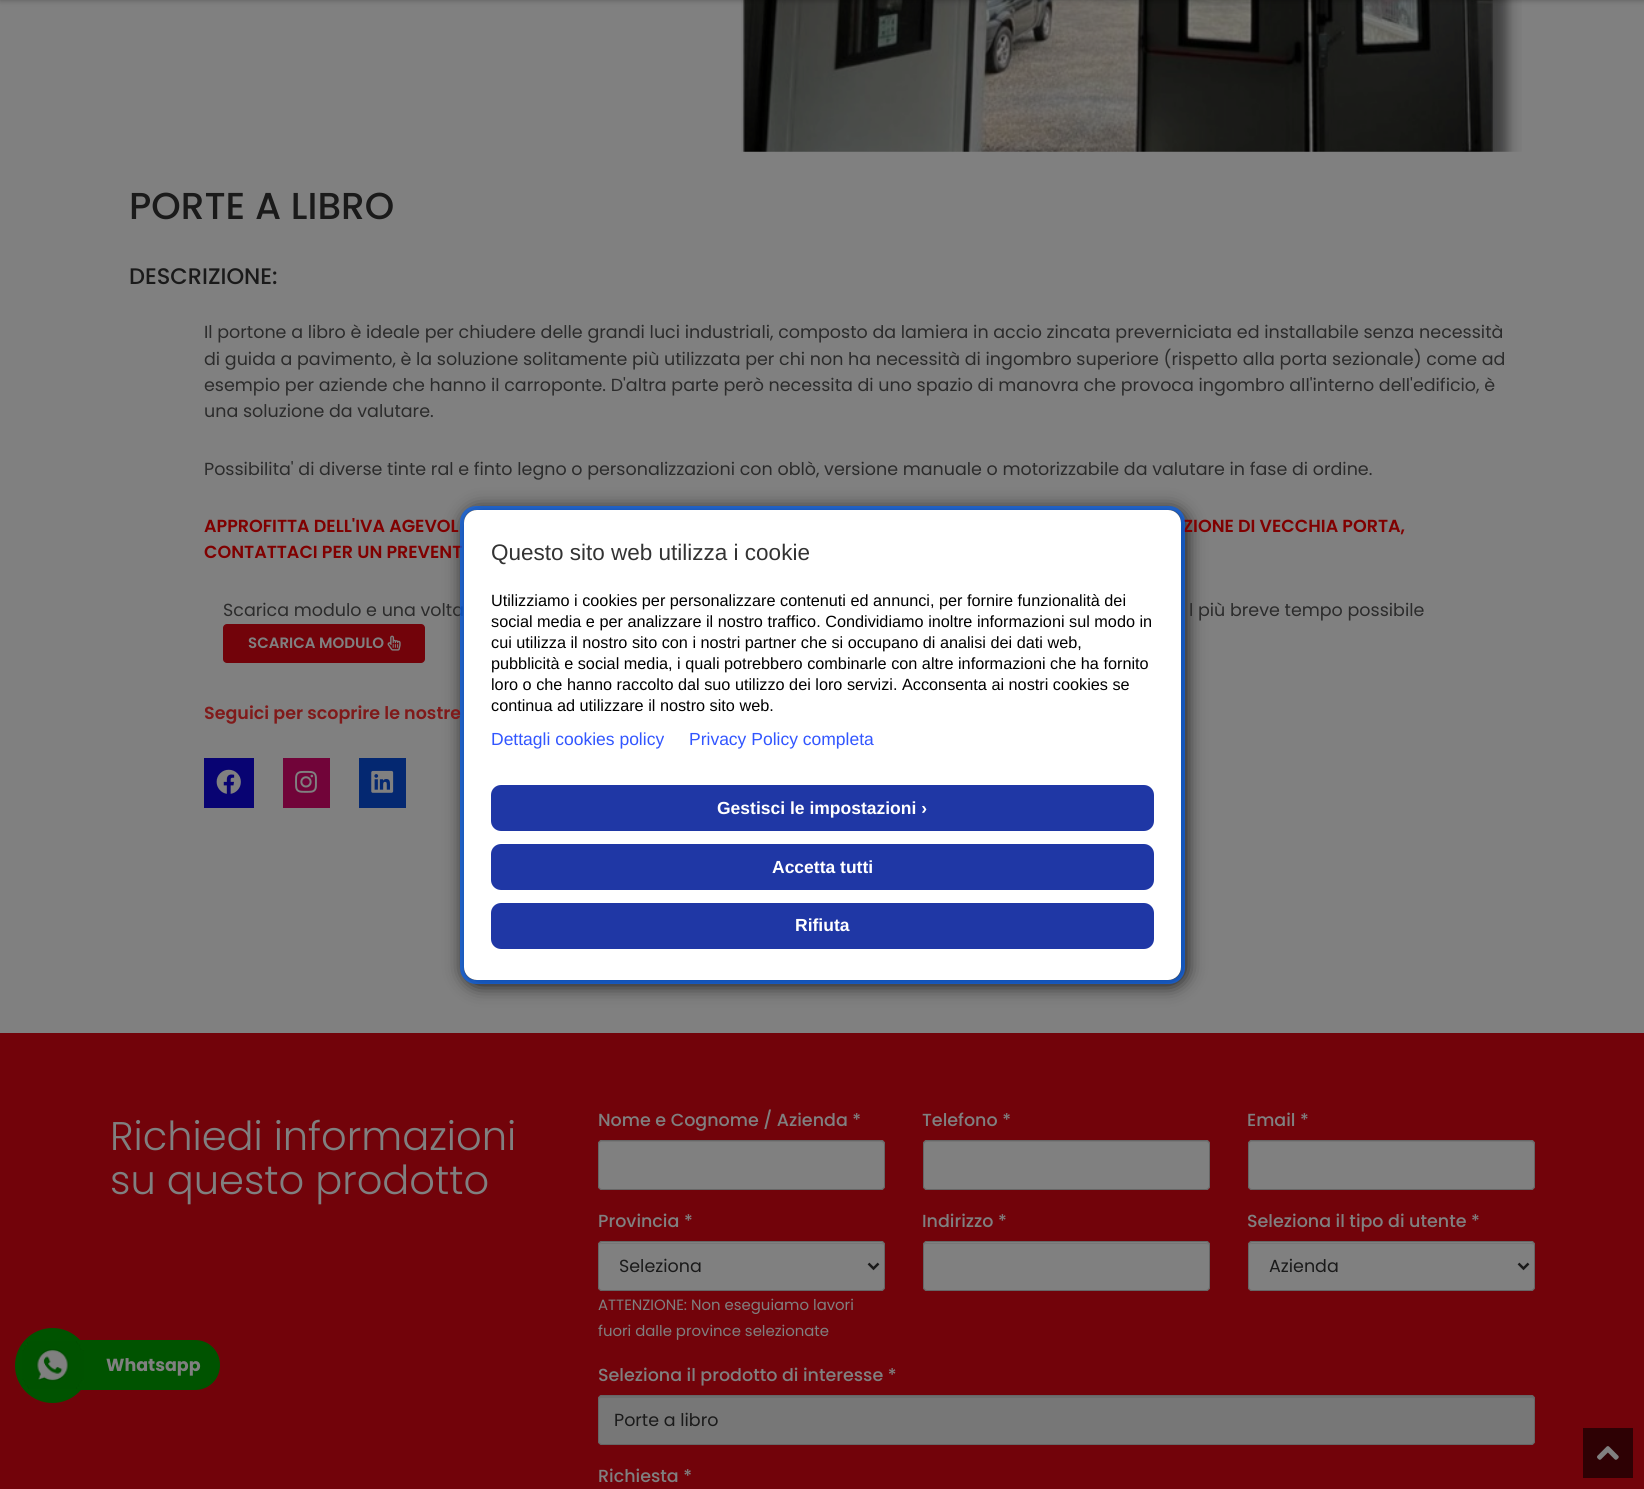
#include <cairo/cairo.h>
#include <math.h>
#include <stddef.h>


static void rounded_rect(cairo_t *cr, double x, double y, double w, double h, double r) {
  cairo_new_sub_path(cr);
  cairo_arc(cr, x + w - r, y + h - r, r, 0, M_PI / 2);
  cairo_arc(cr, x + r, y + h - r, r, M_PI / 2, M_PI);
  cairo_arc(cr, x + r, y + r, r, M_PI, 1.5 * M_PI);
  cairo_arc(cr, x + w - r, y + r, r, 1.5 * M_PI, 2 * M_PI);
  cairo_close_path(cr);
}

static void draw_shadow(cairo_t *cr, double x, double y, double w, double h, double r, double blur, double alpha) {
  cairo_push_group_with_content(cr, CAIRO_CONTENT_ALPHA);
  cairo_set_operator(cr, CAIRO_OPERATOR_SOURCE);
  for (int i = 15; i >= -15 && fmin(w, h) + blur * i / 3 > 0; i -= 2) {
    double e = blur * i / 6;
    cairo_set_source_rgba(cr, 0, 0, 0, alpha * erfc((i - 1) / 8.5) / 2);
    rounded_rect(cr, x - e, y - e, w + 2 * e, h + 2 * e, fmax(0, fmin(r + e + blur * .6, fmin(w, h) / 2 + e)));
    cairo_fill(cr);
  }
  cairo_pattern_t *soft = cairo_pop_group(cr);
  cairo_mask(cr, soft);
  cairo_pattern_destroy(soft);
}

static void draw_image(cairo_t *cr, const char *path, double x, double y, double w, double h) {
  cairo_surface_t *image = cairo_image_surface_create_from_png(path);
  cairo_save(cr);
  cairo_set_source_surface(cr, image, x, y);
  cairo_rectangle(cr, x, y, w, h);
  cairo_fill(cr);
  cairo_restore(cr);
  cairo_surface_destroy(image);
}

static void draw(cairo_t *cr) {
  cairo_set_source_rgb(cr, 128 / 255.0, 128 / 255.0, 128 / 255.0);
  cairo_paint(cr);
  draw_image(cr, "images/1.png", 741, 0, 781, 152);
  cairo_set_source_rgb(cr, 0, 0, 0);
  draw_shadow(cr, 0, -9, 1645, 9, 0, 3, 0.3);
  cairo_set_source_rgb(cr, 114 / 255.0, 3 / 255.0, 10 / 255.0);
  rounded_rect(cr, 223, 624, 202, 39, 4);
  cairo_fill(cr);
  draw_image(cr, "images/2.png", 387, 635, 14, 16);
  cairo_set_source_rgb(cr, 8 / 255.0, 3 / 255.0, 114 / 255.0);
  cairo_rectangle(cr, 204, 758, 50, 50);
  cairo_fill(cr);
  draw_image(cr, "images/3.png", 216, 769, 25, 25);
  cairo_set_source_rgb(cr, 113 / 255.0, 4 / 255.0, 57 / 255.0);
  cairo_rectangle(cr, 283, 758, 47, 50);
  cairo_fill(cr);
  draw_image(cr, "images/4.png", 295, 770, 22, 23);
  cairo_set_source_rgb(cr, 4 / 255.0, 40 / 255.0, 113 / 255.0);
  cairo_rectangle(cr, 359, 758, 47, 50);
  cairo_fill(cr);
  draw_image(cr, "images/5.png", 371, 770, 23, 23);
  cairo_set_source_rgb(cr, 18 / 255.0, 18 / 255.0, 19 / 255.0);
  draw_shadow(cr, 464, 510, 722, 475, 15, 9, 1);
  cairo_set_source_rgb(cr, 114 / 255.0, 3 / 255.0, 10 / 255.0);
  cairo_rectangle(cr, 0, 1033, 1644, 456);
  cairo_fill(cr);
  cairo_set_source_rgb(cr, 0, 83 / 255.0, 0);
  cairo_arc(cr, 52.5, 1365.5, 37.5, 0, 2 * M_PI);
  cairo_fill(cr);
  cairo_new_path(cr);
  cairo_move_to(cr, 69, 1340);
  cairo_line_to(cr, 195, 1340);
  cairo_curve_to(cr, 209, 1340, 220, 1351, 220, 1365);
  cairo_curve_to(cr, 220, 1379, 209, 1390, 195, 1390);
  cairo_line_to(cr, 69, 1390);
  cairo_close_path(cr);
  cairo_fill(cr);
  draw_image(cr, "images/6.png", 22, 1341, 62, 48);
  cairo_set_source_rgb(cr, 46 / 255.0, 1 / 255.0, 4 / 255.0);
  cairo_rectangle(cr, 1583, 1428, 50, 50);
  cairo_fill(cr);
  draw_image(cr, "images/7.png", 1597, 1446, 22, 14);
  cairo_set_source_rgb(cr, 128 / 255.0, 128 / 255.0, 128 / 255.0);
  rounded_rect(cr, 598, 1140, 287, 50, 4);
  cairo_fill(cr);
  cairo_set_source_rgb(cr, 118 / 255.0, 118 / 255.0, 118 / 255.0);
  cairo_new_path(cr);
  cairo_move_to(cr, 601, 1142);
  cairo_line_to(cr, 881, 1142);
  cairo_curve_to(cr, 883, 1142, 884, 1144, 884, 1145);
  cairo_curve_to(cr, 884, 1143, 884, 1141, 882, 1141);
  cairo_line_to(cr, 602, 1141);
  cairo_curve_to(cr, 599, 1141, 599, 1143, 599, 1145);
  cairo_curve_to(cr, 599, 1144, 600, 1142, 601, 1142);
  cairo_close_path(cr);
  cairo_fill(cr);
  rounded_rect(cr, 598.5, 1140.5, 286, 49, 3.5);
  cairo_set_source_rgb(cr, 102 / 255.0, 102 / 255.0, 102 / 255.0);
  cairo_set_line_width(cr, 1);
  cairo_stroke(cr);
  cairo_set_source_rgb(cr, 128 / 255.0, 128 / 255.0, 128 / 255.0);
  rounded_rect(cr, 923, 1140, 287, 50, 4);
  cairo_fill(cr);
  cairo_set_source_rgb(cr, 118 / 255.0, 118 / 255.0, 118 / 255.0);
  cairo_new_path(cr);
  cairo_move_to(cr, 926, 1142);
  cairo_line_to(cr, 1206, 1142);
  cairo_curve_to(cr, 1208, 1142, 1209, 1144, 1209, 1145);
  cairo_curve_to(cr, 1209, 1143, 1209, 1141, 1206, 1141);
  cairo_line_to(cr, 926, 1141);
  cairo_curve_to(cr, 924, 1141, 924, 1143, 924, 1145);
  cairo_curve_to(cr, 924, 1144, 925, 1142, 926, 1142);
  cairo_close_path(cr);
  cairo_fill(cr);
  rounded_rect(cr, 923.5, 1140.5, 286, 49, 3.5);
  cairo_set_source_rgb(cr, 102 / 255.0, 102 / 255.0, 102 / 255.0);
  cairo_stroke(cr);
  cairo_set_source_rgb(cr, 128 / 255.0, 128 / 255.0, 128 / 255.0);
  rounded_rect(cr, 1248, 1140, 287, 50, 4);
  cairo_fill(cr);
  cairo_set_source_rgb(cr, 118 / 255.0, 118 / 255.0, 118 / 255.0);
  cairo_new_path(cr);
  cairo_move_to(cr, 1251, 1142);
  cairo_line_to(cr, 1531, 1142);
  cairo_curve_to(cr, 1533, 1142, 1534, 1144, 1534, 1145);
  cairo_curve_to(cr, 1534, 1143, 1534, 1141, 1532, 1141);
  cairo_line_to(cr, 1252, 1141);
  cairo_curve_to(cr, 1249, 1141, 1249, 1143, 1249, 1145);
  cairo_curve_to(cr, 1249, 1144, 1250, 1142, 1251, 1142);
  cairo_close_path(cr);
  cairo_fill(cr);
  rounded_rect(cr, 1248.5, 1140.5, 286, 49, 3.5);
  cairo_set_source_rgb(cr, 102 / 255.0, 102 / 255.0, 102 / 255.0);
  cairo_stroke(cr);
  cairo_set_source_rgb(cr, 128 / 255.0, 128 / 255.0, 128 / 255.0);
  rounded_rect(cr, 598, 1241, 287, 50, 4);
  cairo_fill(cr);
  cairo_set_source_rgb(cr, 118 / 255.0, 118 / 255.0, 118 / 255.0);
  cairo_new_path(cr);
  cairo_move_to(cr, 601, 1244);
  cairo_line_to(cr, 881, 1244);
  cairo_curve_to(cr, 883, 1244, 884, 1245, 884, 1246);
  cairo_curve_to(cr, 884, 1244, 883, 1243, 882, 1243);
  cairo_line_to(cr, 602, 1243);
  cairo_curve_to(cr, 600, 1243, 599, 1244, 599, 1246);
  cairo_curve_to(cr, 599, 1245, 600, 1244, 601, 1244);
  cairo_close_path(cr);
  cairo_fill(cr);
  rounded_rect(cr, 598.5, 1241.5, 286, 49, 3.5);
  cairo_set_source_rgb(cr, 102 / 255.0, 102 / 255.0, 102 / 255.0);
  cairo_stroke(cr);
  cairo_new_path(cr);
  cairo_move_to(cr, 868.5, 1263.5);
  cairo_line_to(cr, 873.5, 1268.5);
  cairo_line_to(cr, 878.5, 1263.5);
  cairo_set_source_rgb(cr, 26 / 255.0, 26 / 255.0, 26 / 255.0);
  cairo_set_line_width(cr, 2.5);
  cairo_stroke(cr);
  cairo_set_source_rgb(cr, 128 / 255.0, 128 / 255.0, 128 / 255.0);
  rounded_rect(cr, 923, 1241, 287, 50, 4);
  cairo_fill(cr);
  cairo_set_source_rgb(cr, 118 / 255.0, 118 / 255.0, 118 / 255.0);
  cairo_new_path(cr);
  cairo_move_to(cr, 926, 1244);
  cairo_line_to(cr, 1206, 1244);
  cairo_curve_to(cr, 1208, 1244, 1209, 1245, 1209, 1246);
  cairo_curve_to(cr, 1209, 1244, 1208, 1243, 1206, 1243);
  cairo_line_to(cr, 926, 1243);
  cairo_curve_to(cr, 925, 1243, 924, 1244, 924, 1246);
  cairo_curve_to(cr, 924, 1245, 925, 1244, 926, 1244);
  cairo_close_path(cr);
  cairo_fill(cr);
  rounded_rect(cr, 923.5, 1241.5, 286, 49, 3.5);
  cairo_set_source_rgb(cr, 102 / 255.0, 102 / 255.0, 102 / 255.0);
  cairo_set_line_width(cr, 1);
  cairo_stroke(cr);
  cairo_set_source_rgb(cr, 128 / 255.0, 128 / 255.0, 128 / 255.0);
  rounded_rect(cr, 1248, 1241, 287, 50, 4);
  cairo_fill(cr);
  cairo_set_source_rgb(cr, 118 / 255.0, 118 / 255.0, 118 / 255.0);
  cairo_new_path(cr);
  cairo_move_to(cr, 1251, 1244);
  cairo_line_to(cr, 1531, 1244);
  cairo_curve_to(cr, 1533, 1244, 1534, 1245, 1534, 1246);
  cairo_curve_to(cr, 1534, 1244, 1533, 1243, 1532, 1243);
  cairo_line_to(cr, 1252, 1243);
  cairo_curve_to(cr, 1250, 1243, 1249, 1244, 1249, 1246);
  cairo_curve_to(cr, 1249, 1245, 1250, 1244, 1251, 1244);
  cairo_close_path(cr);
  cairo_fill(cr);
  rounded_rect(cr, 1248.5, 1241.5, 286, 49, 3.5);
  cairo_set_source_rgb(cr, 102 / 255.0, 102 / 255.0, 102 / 255.0);
  cairo_stroke(cr);
  cairo_new_path(cr);
  cairo_move_to(cr, 1518.5, 1263.5);
  cairo_line_to(cr, 1523.5, 1268.5);
  cairo_line_to(cr, 1528.5, 1263.5);
  cairo_set_source_rgb(cr, 26 / 255.0, 26 / 255.0, 26 / 255.0);
  cairo_set_line_width(cr, 2.5);
  cairo_stroke(cr);
  cairo_set_source_rgb(cr, 119 / 255.0, 119 / 255.0, 119 / 255.0);
  rounded_rect(cr, 598, 1395, 937, 50, 4);
  cairo_fill(cr);
  cairo_set_source_rgb(cr, 110 / 255.0, 110 / 255.0, 110 / 255.0);
  cairo_new_path(cr);
  cairo_move_to(cr, 601, 1398);
  cairo_line_to(cr, 1531, 1398);
  cairo_curve_to(cr, 1533, 1398, 1534, 1399, 1534, 1400);
  cairo_curve_to(cr, 1534, 1398, 1534, 1396, 1532, 1396);
  cairo_line_to(cr, 602, 1396);
  cairo_curve_to(cr, 599, 1396, 599, 1398, 599, 1400);
  cairo_curve_to(cr, 599, 1399, 600, 1398, 601, 1398);
  cairo_close_path(cr);
  cairo_fill(cr);
  rounded_rect(cr, 598.5, 1395.5, 936, 49, 3.5);
  cairo_set_source_rgb(cr, 102 / 255.0, 102 / 255.0, 102 / 255.0);
  cairo_set_line_width(cr, 1);
  cairo_stroke(cr);
  cairo_select_font_face(cr, "Poppins Medium", CAIRO_FONT_SLANT_NORMAL, CAIRO_FONT_WEIGHT_NORMAL);
  cairo_set_font_size(cr, 37.5);
  cairo_set_source_rgb(cr, 26 / 255.0, 26 / 255.0, 26 / 255.0);
  cairo_move_to(cr, 129, 219);
  cairo_show_text(cr, "PORTE A LIBRO");
  cairo_set_font_size(cr, 22.5);
  cairo_move_to(cr, 129, 284);
  cairo_show_text(cr, "DESCRIZIONE:");
  cairo_select_font_face(cr, "Poppins", CAIRO_FONT_SLANT_NORMAL, CAIRO_FONT_WEIGHT_NORMAL);
  cairo_set_font_size(cr, 17.5);
  cairo_set_source_rgb(cr, 43 / 255.0, 43 / 255.0, 43 / 255.0);
  cairo_move_to(cr, 204, 338);
  cairo_show_text(cr, "Il portone a libro è ideale per chiudere delle grandi luci industriali, composto da lamiera in accio zincata preverniciata ed installabile senza necessità");
  cairo_move_to(cr, 204, 365);
  cairo_show_text(cr, "di guida a pavimento, è la soluzione solitamente più utilizzata per chi non ha necessità di ingombro superiore (rispetto alla porta sezionale) come ad");
  cairo_move_to(cr, 204, 391);
  cairo_show_text(cr, "esempio per aziende che hanno il carroponte. D'altra parte però necessita di uno spazio di manovra che provoca ingombro all'interno dell'edificio, è");
  cairo_move_to(cr, 204, 417);
  cairo_show_text(cr, "una soluzione da valutare.");
  cairo_move_to(cr, 204, 475);
  cairo_show_text(cr, "Possibilita' di diverse tinte ral e finto legno o personalizzazioni con oblò, versione manuale o motorizzabile da valutare in fase di ordine.");
  cairo_select_font_face(cr, "Poppins SemiBold", CAIRO_FONT_SLANT_NORMAL, CAIRO_FONT_WEIGHT_NORMAL);
  cairo_set_source_rgb(cr, 128 / 255.0, 0, 0);
  cairo_move_to(cr, 204, 532);
  cairo_show_text(cr, "APPROFITTA DELL'IVA AGEVOL");
  cairo_move_to(cr, 1183, 532);
  cairo_show_text(cr, "ZIONE DI VECCHIA PORTA,");
  cairo_move_to(cr, 204, 558);
  cairo_show_text(cr, "CONTATTACI PER UN PREVENT");
  cairo_select_font_face(cr, "Poppins", CAIRO_FONT_SLANT_NORMAL, CAIRO_FONT_WEIGHT_NORMAL);
  cairo_set_source_rgb(cr, 43 / 255.0, 43 / 255.0, 43 / 255.0);
  cairo_move_to(cr, 223, 616);
  cairo_show_text(cr, "Scarica modulo e una volta");
  cairo_move_to(cr, 1189, 616);
  cairo_show_text(cr, "l più breve tempo possibile");
  cairo_select_font_face(cr, "Poppins SemiBold", CAIRO_FONT_SLANT_NORMAL, CAIRO_FONT_WEIGHT_NORMAL);
  cairo_set_font_size(cr, 15);
  cairo_set_source_rgb(cr, 128 / 255.0, 128 / 255.0, 128 / 255.0);
  cairo_move_to(cr, 248, 648);
  cairo_show_text(cr, "SCARICA MODULO");
  cairo_set_font_size(cr, 17.5);
  cairo_set_source_rgb(cr, 128 / 255.0, 26 / 255.0, 26 / 255.0);
  cairo_move_to(cr, 204, 719);
  cairo_show_text(cr, "Seguici per scoprire le nostre");
  rounded_rect(cr, 462, 508, 721, 474, 14);
  cairo_set_source_rgba(cr, 0, 100 / 255.0, 1, 0.64);
  cairo_set_line_width(cr, 4);
  cairo_stroke(cr);
  cairo_set_source_rgb(cr, 1, 1, 1);
  rounded_rect(cr, 464, 510, 717, 470, 13);
  cairo_fill(cr);
  cairo_select_font_face(cr, "Liberation Sans", CAIRO_FONT_SLANT_NORMAL, CAIRO_FONT_WEIGHT_NORMAL);
  cairo_set_font_size(cr, 22.5);
  cairo_set_source_rgb(cr, 51 / 255.0, 51 / 255.0, 51 / 255.0);
  cairo_move_to(cr, 491, 560);
  cairo_show_text(cr, "Questo sito web utilizza i cookie");
  cairo_set_font_size(cr, 16.25);
  cairo_set_source_rgb(cr, 0, 0, 0);
  cairo_move_to(cr, 491, 606);
  cairo_show_text(cr, "Utilizziamo i cookies per personalizzare contenuti ed annunci, per fornire funzionalità dei");
  cairo_move_to(cr, 491, 627);
  cairo_show_text(cr, "social media e per analizzare il nostro traffico. Condividiamo inoltre informazioni sul modo in");
  cairo_move_to(cr, 491, 648);
  cairo_show_text(cr, "cui utilizza il nostro sito con i nostri partner che si occupano di analisi dei dati web,");
  cairo_move_to(cr, 491, 669);
  cairo_show_text(cr, "pubblicità e social media, i quali potrebbero combinarle con altre informazioni che ha fornito");
  cairo_move_to(cr, 491, 690);
  cairo_show_text(cr, "loro o che hanno raccolto dal suo utilizzo dei loro servizi. Acconsenta ai nostri cookies se");
  cairo_move_to(cr, 491, 711);
  cairo_show_text(cr, "continua ad utilizzare il nostro sito web.");
  cairo_set_font_size(cr, 17.5);
  cairo_set_source_rgb(cr, 50 / 255.0, 86 / 255.0, 1);
  cairo_move_to(cr, 491, 745);
  cairo_show_text(cr, "Dettagli cookies policy");
  cairo_move_to(cr, 689, 745);
  cairo_show_text(cr, "Privacy Policy completa");
  cairo_set_source_rgb(cr, 31 / 255.0, 55 / 255.0, 165 / 255.0);
  rounded_rect(cr, 491, 785, 663, 46, 10);
  cairo_fill(cr);
  cairo_select_font_face(cr, "Liberation Sans", CAIRO_FONT_SLANT_NORMAL, CAIRO_FONT_WEIGHT_BOLD);
  cairo_set_source_rgb(cr, 1, 1, 1);
  cairo_move_to(cr, 717, 814);
  cairo_show_text(cr, "Gestisci le impostazioni ›");
  cairo_set_source_rgb(cr, 31 / 255.0, 55 / 255.0, 165 / 255.0);
  rounded_rect(cr, 491, 844, 663, 46, 10);
  cairo_fill(cr);
  cairo_set_source_rgb(cr, 1, 1, 1);
  cairo_move_to(cr, 772, 873);
  cairo_show_text(cr, "Accetta tutti");
  cairo_set_source_rgb(cr, 31 / 255.0, 55 / 255.0, 165 / 255.0);
  rounded_rect(cr, 491, 903, 663, 46, 10);
  cairo_fill(cr);
  cairo_set_source_rgb(cr, 1, 1, 1);
  cairo_move_to(cr, 795, 931);
  cairo_show_text(cr, "Rifiuta");
  cairo_select_font_face(cr, "Poppins", CAIRO_FONT_SLANT_NORMAL, CAIRO_FONT_WEIGHT_BOLD);
  cairo_set_source_rgb(cr, 128 / 255.0, 128 / 255.0, 128 / 255.0);
  cairo_move_to(cr, 106, 1371);
  cairo_show_text(cr, "Whatsapp");
  cairo_select_font_face(cr, "Poppins Light", CAIRO_FONT_SLANT_NORMAL, CAIRO_FONT_WEIGHT_NORMAL);
  cairo_set_font_size(cr, 40);
  cairo_move_to(cr, 110, 1150);
  cairo_show_text(cr, "Richiedi informazioni");
  cairo_move_to(cr, 110, 1194);
  cairo_show_text(cr, "su questo prodotto");
  cairo_select_font_face(cr, "Poppins Medium", CAIRO_FONT_SLANT_NORMAL, CAIRO_FONT_WEIGHT_NORMAL);
  cairo_set_font_size(cr, 17.5);
  cairo_move_to(cr, 598, 1126);
  cairo_show_text(cr, "Nome e Cognome / Azienda *");
  cairo_move_to(cr, 922, 1126);
  cairo_show_text(cr, "Telefono *");
  cairo_move_to(cr, 1247, 1126);
  cairo_show_text(cr, "Email *");
  cairo_move_to(cr, 598, 1227);
  cairo_show_text(cr, "Provincia *");
  cairo_select_font_face(cr, "Poppins", CAIRO_FONT_SLANT_NORMAL, CAIRO_FONT_WEIGHT_NORMAL);
  cairo_set_source_rgb(cr, 26 / 255.0, 26 / 255.0, 26 / 255.0);
  cairo_move_to(cr, 619, 1272);
  cairo_show_text(cr, "Seleziona");
  cairo_set_font_size(cr, 14.9);
  cairo_set_source_rgb(cr, 128 / 255.0, 128 / 255.0, 128 / 255.0);
  cairo_move_to(cr, 598, 1310);
  cairo_show_text(cr, "ATTENZIONE: Non eseguiamo lavori");
  cairo_move_to(cr, 598, 1336);
  cairo_show_text(cr, "fuori dalle province selezionate");
  cairo_select_font_face(cr, "Poppins Medium", CAIRO_FONT_SLANT_NORMAL, CAIRO_FONT_WEIGHT_NORMAL);
  cairo_set_font_size(cr, 17.5);
  cairo_move_to(cr, 922, 1227);
  cairo_show_text(cr, "Indirizzo *");
  cairo_move_to(cr, 1247, 1227);
  cairo_show_text(cr, "Seleziona il tipo di utente *");
  cairo_select_font_face(cr, "Poppins", CAIRO_FONT_SLANT_NORMAL, CAIRO_FONT_WEIGHT_NORMAL);
  cairo_set_source_rgb(cr, 26 / 255.0, 26 / 255.0, 26 / 255.0);
  cairo_move_to(cr, 1269, 1272);
  cairo_show_text(cr, "Azienda");
  cairo_select_font_face(cr, "Poppins Medium", CAIRO_FONT_SLANT_NORMAL, CAIRO_FONT_WEIGHT_NORMAL);
  cairo_set_source_rgb(cr, 128 / 255.0, 128 / 255.0, 128 / 255.0);
  cairo_move_to(cr, 598, 1381);
  cairo_show_text(cr, "Seleziona il prodotto di interesse *");
  cairo_select_font_face(cr, "Poppins", CAIRO_FONT_SLANT_NORMAL, CAIRO_FONT_WEIGHT_NORMAL);
  cairo_set_source_rgb(cr, 26 / 255.0, 26 / 255.0, 26 / 255.0);
  cairo_move_to(cr, 614, 1426);
  cairo_show_text(cr, "Porte a libro");
  cairo_select_font_face(cr, "Poppins Medium", CAIRO_FONT_SLANT_NORMAL, CAIRO_FONT_WEIGHT_NORMAL);
  cairo_set_source_rgb(cr, 128 / 255.0, 128 / 255.0, 128 / 255.0);
  cairo_move_to(cr, 598, 1482);
  cairo_show_text(cr, "Richiesta *");
}

int main(void) {
  cairo_surface_t *surface = cairo_image_surface_create(CAIRO_FORMAT_RGB24, 1644, 1489);
  cairo_t *cr = cairo_create(surface);
  cairo_font_options_t *options = cairo_font_options_create();
  cairo_font_options_set_hint_metrics(options, CAIRO_HINT_METRICS_OFF);
  cairo_font_options_set_hint_style(options, CAIRO_HINT_STYLE_NONE);
  cairo_set_font_options(cr, options);
  cairo_set_miter_limit(cr, 4);
  draw(cr);
  cairo_surface_write_to_png(surface, "out.png");
  cairo_font_options_destroy(options);
  cairo_destroy(cr);
  cairo_surface_destroy(surface);
  return 0;
}
